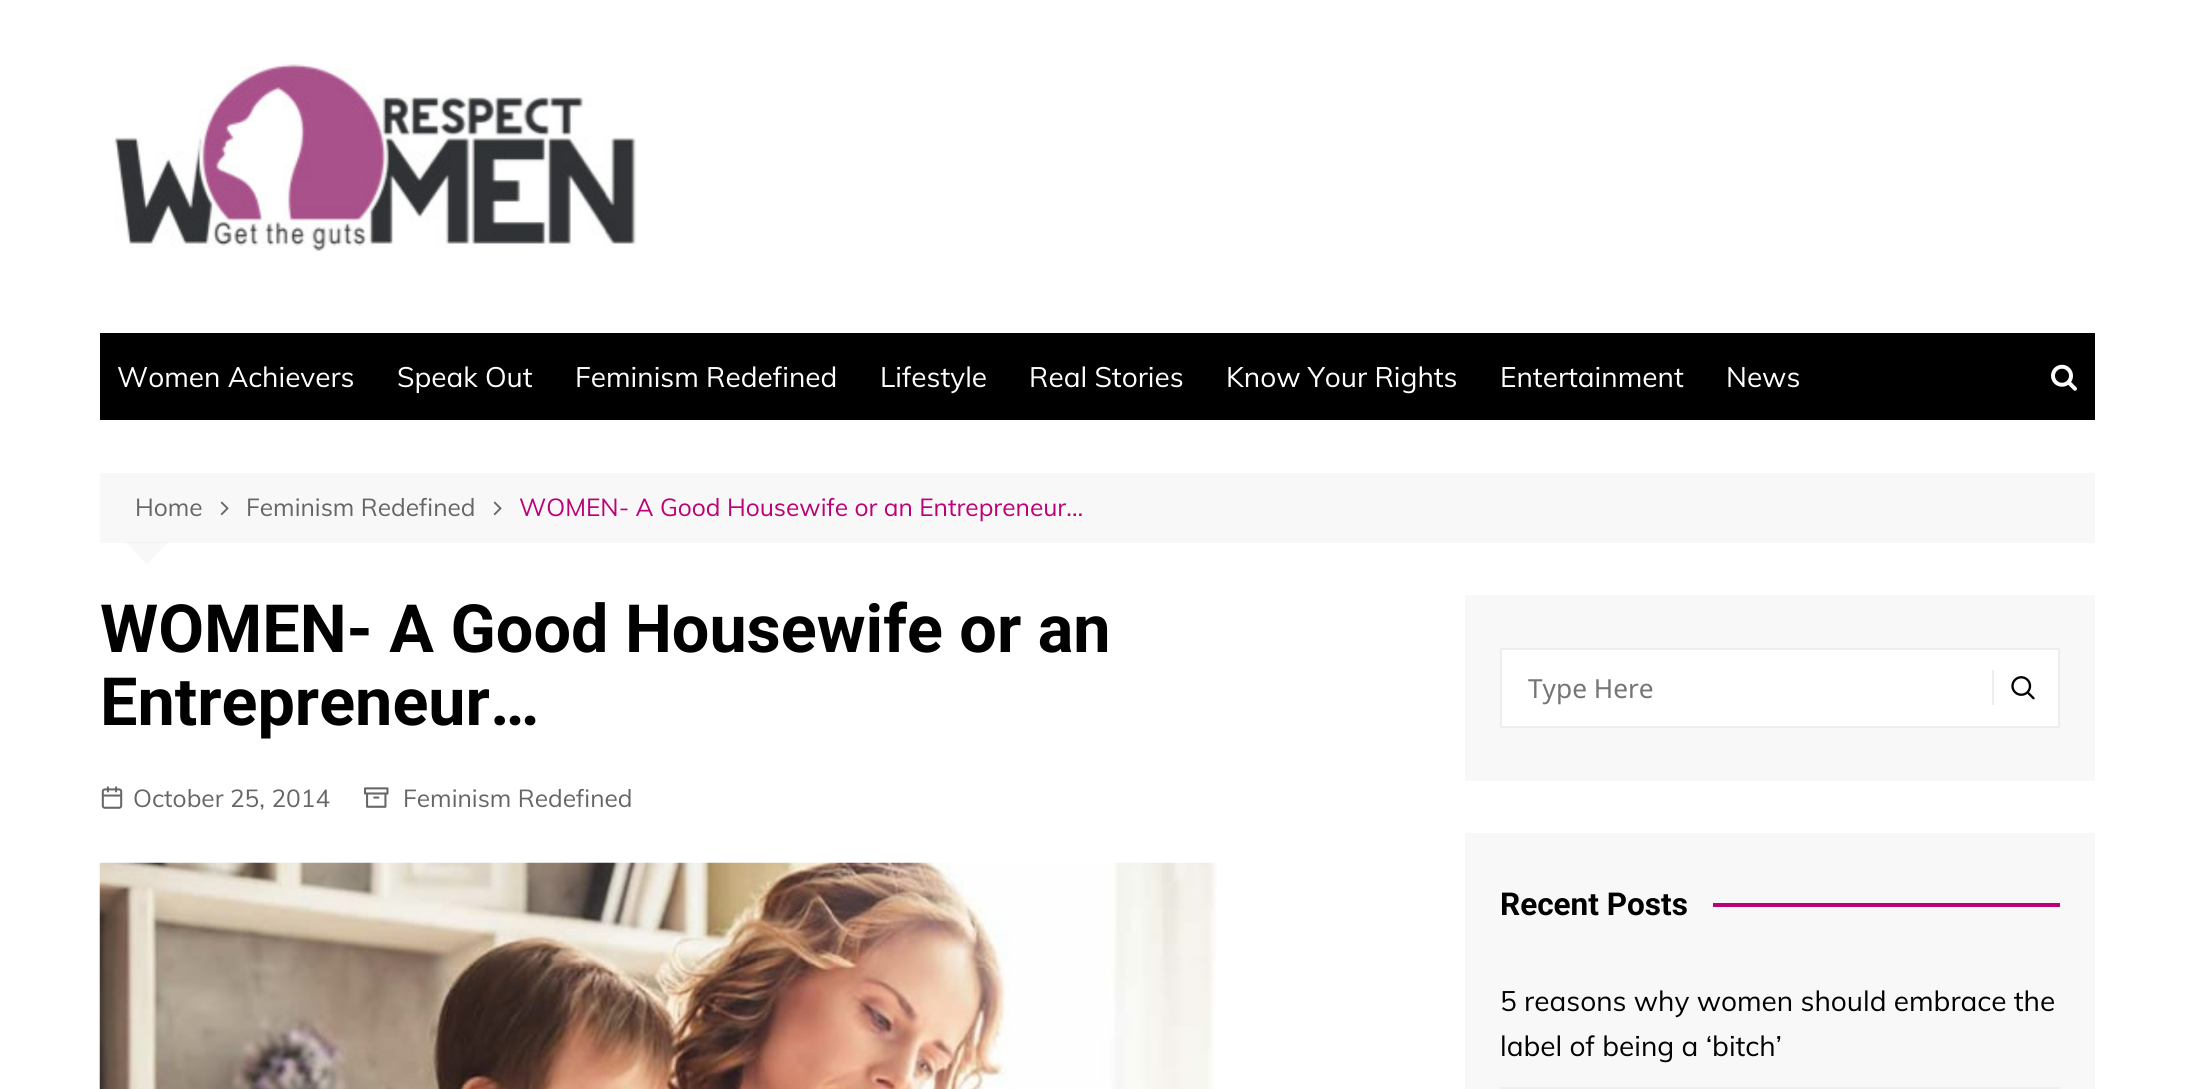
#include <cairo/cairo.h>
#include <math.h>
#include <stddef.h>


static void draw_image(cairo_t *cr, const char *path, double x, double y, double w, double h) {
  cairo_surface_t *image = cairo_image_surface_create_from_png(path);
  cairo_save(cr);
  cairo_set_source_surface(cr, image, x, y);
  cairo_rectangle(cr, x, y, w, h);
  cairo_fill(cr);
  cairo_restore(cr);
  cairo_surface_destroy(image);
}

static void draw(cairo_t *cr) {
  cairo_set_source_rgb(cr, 1, 1, 1);
  cairo_paint(cr);
  draw_image(cr, "images/1.png", 114, 60, 522, 192);
  cairo_set_source_rgb(cr, 0, 0, 0);
  cairo_rectangle(cr, 100, 333, 1995, 87);
  cairo_fill(cr);
  draw_image(cr, "images/2.png", 2051, 364, 26, 27);
  cairo_set_source_rgb(cr, 248 / 255.0, 248 / 255.0, 248 / 255.0);
  cairo_rectangle(cr, 100, 473, 1995, 70);
  cairo_fill(cr);
  draw_image(cr, "images/3.png", 220, 501, 9, 15);
  draw_image(cr, "images/3.png", 493, 501, 9, 15);
  cairo_set_source_rgba(cr, 0, 0, 0, 0.03);
  cairo_new_path(cr);
  cairo_move_to(cr, 126, 542);
  cairo_line_to(cr, 168, 542);
  cairo_line_to(cr, 147, 565);
  cairo_close_path(cr);
  cairo_fill(cr);
  draw_image(cr, "images/4.png", 101, 786, 22, 23);
  draw_image(cr, "images/5.png", 364, 787, 25, 21);
  draw_image(cr, "images/6.png", 99, 862, 1118, 227);
  cairo_set_source_rgb(cr, 248 / 255.0, 248 / 255.0, 248 / 255.0);
  cairo_rectangle(cr, 1465, 595, 630, 186);
  cairo_fill(cr);
  cairo_set_source_rgb(cr, 1, 1, 1);
  cairo_rectangle(cr, 1501, 649, 558, 78);
  cairo_fill_preserve(cr);
  cairo_set_source_rgb(cr, 238 / 255.0, 238 / 255.0, 238 / 255.0);
  cairo_stroke(cr);
  cairo_rectangle(cr, 1992, 670, 2, 35);
  cairo_fill(cr);
  draw_image(cr, "images/7.png", 2011, 676, 24, 24);
  cairo_set_source_rgb(cr, 248 / 255.0, 248 / 255.0, 248 / 255.0);
  cairo_rectangle(cr, 1465, 833, 630, 256);
  cairo_fill(cr);
  cairo_set_source_rgb(cr, 188 / 255.0, 0, 119 / 255.0);
  cairo_rectangle(cr, 1713, 903, 347, 4);
  cairo_fill(cr);
  cairo_set_source_rgb(cr, 238 / 255.0, 238 / 255.0, 238 / 255.0);
  cairo_rectangle(cr, 1500, 1087, 560, 2);
  cairo_fill(cr);
  cairo_select_font_face(cr, "Muli", CAIRO_FONT_SLANT_NORMAL, CAIRO_FONT_WEIGHT_NORMAL);
  cairo_set_font_size(cr, 28);
  cairo_set_source_rgb(cr, 1, 1, 1);
  cairo_move_to(cr, 117, 387);
  cairo_show_text(cr, "Women Achievers");
  cairo_move_to(cr, 397, 387);
  cairo_show_text(cr, "Speak Out");
  cairo_move_to(cr, 575, 387);
  cairo_show_text(cr, "Feminism Redefined");
  cairo_move_to(cr, 880, 387);
  cairo_show_text(cr, "Lifestyle");
  cairo_move_to(cr, 1029, 387);
  cairo_show_text(cr, "Real Stories");
  cairo_move_to(cr, 1226, 387);
  cairo_show_text(cr, "Know Your Rights");
  cairo_move_to(cr, 1500, 387);
  cairo_show_text(cr, "Entertainment");
  cairo_move_to(cr, 1726, 387);
  cairo_show_text(cr, "News");
  cairo_set_font_size(cr, 24.5);
  cairo_set_source_rgb(cr, 102 / 255.0, 102 / 255.0, 102 / 255.0);
  cairo_move_to(cr, 135, 516);
  cairo_show_text(cr, "Home");
  cairo_move_to(cr, 246, 516);
  cairo_show_text(cr, "Feminism Redefined");
  cairo_set_source_rgb(cr, 188 / 255.0, 0, 119 / 255.0);
  cairo_move_to(cr, 519, 516);
  cairo_show_text(cr, "WOMEN- A Good Housewife or an Entrepreneur…");
  cairo_select_font_face(cr, "Roboto", CAIRO_FONT_SLANT_NORMAL, CAIRO_FONT_WEIGHT_BOLD);
  cairo_set_font_size(cr, 66.5);
  cairo_set_source_rgb(cr, 1 / 255.0, 1 / 255.0, 1 / 255.0);
  cairo_move_to(cr, 100, 652);
  cairo_show_text(cr, "WOMEN- A Good Housewife or an");
  cairo_move_to(cr, 100, 725);
  cairo_show_text(cr, "Entrepreneur…");
  cairo_select_font_face(cr, "Muli", CAIRO_FONT_SLANT_NORMAL, CAIRO_FONT_WEIGHT_NORMAL);
  cairo_set_font_size(cr, 24.5);
  cairo_set_source_rgb(cr, 102 / 255.0, 102 / 255.0, 102 / 255.0);
  cairo_move_to(cr, 133, 807);
  cairo_show_text(cr, "October 25, 2014");
  cairo_move_to(cr, 403, 807);
  cairo_show_text(cr, "Feminism Redefined");
  cairo_select_font_face(cr, "Noto Sans", CAIRO_FONT_SLANT_NORMAL, CAIRO_FONT_WEIGHT_NORMAL);
  cairo_set_font_size(cr, 26.25);
  cairo_set_source_rgb(cr, 117 / 255.0, 117 / 255.0, 117 / 255.0);
  cairo_move_to(cr, 1528, 698);
  cairo_show_text(cr, "Type Here");
  cairo_select_font_face(cr, "Roboto", CAIRO_FONT_SLANT_NORMAL, CAIRO_FONT_WEIGHT_BOLD);
  cairo_set_font_size(cr, 31.5);
  cairo_set_source_rgb(cr, 1 / 255.0, 1 / 255.0, 1 / 255.0);
  cairo_move_to(cr, 1500, 915);
  cairo_show_text(cr, "Recent Posts");
  cairo_select_font_face(cr, "Muli", CAIRO_FONT_SLANT_NORMAL, CAIRO_FONT_WEIGHT_NORMAL);
  cairo_set_font_size(cr, 28);
  cairo_move_to(cr, 1500, 1011);
  cairo_show_text(cr, "5 reasons why women should embrace the");
  cairo_move_to(cr, 1500, 1056);
  cairo_show_text(cr, "label of being a ‘bitch’");
}

int main(void) {
  cairo_surface_t *surface = cairo_image_surface_create(CAIRO_FORMAT_RGB24, 2193, 1089);
  cairo_t *cr = cairo_create(surface);
  cairo_font_options_t *options = cairo_font_options_create();
  cairo_font_options_set_hint_metrics(options, CAIRO_HINT_METRICS_OFF);
  cairo_font_options_set_hint_style(options, CAIRO_HINT_STYLE_NONE);
  cairo_set_font_options(cr, options);
  cairo_set_miter_limit(cr, 4);
  draw(cr);
  cairo_surface_write_to_png(surface, "out.png");
  cairo_font_options_destroy(options);
  cairo_destroy(cr);
  cairo_surface_destroy(surface);
  return 0;
}
